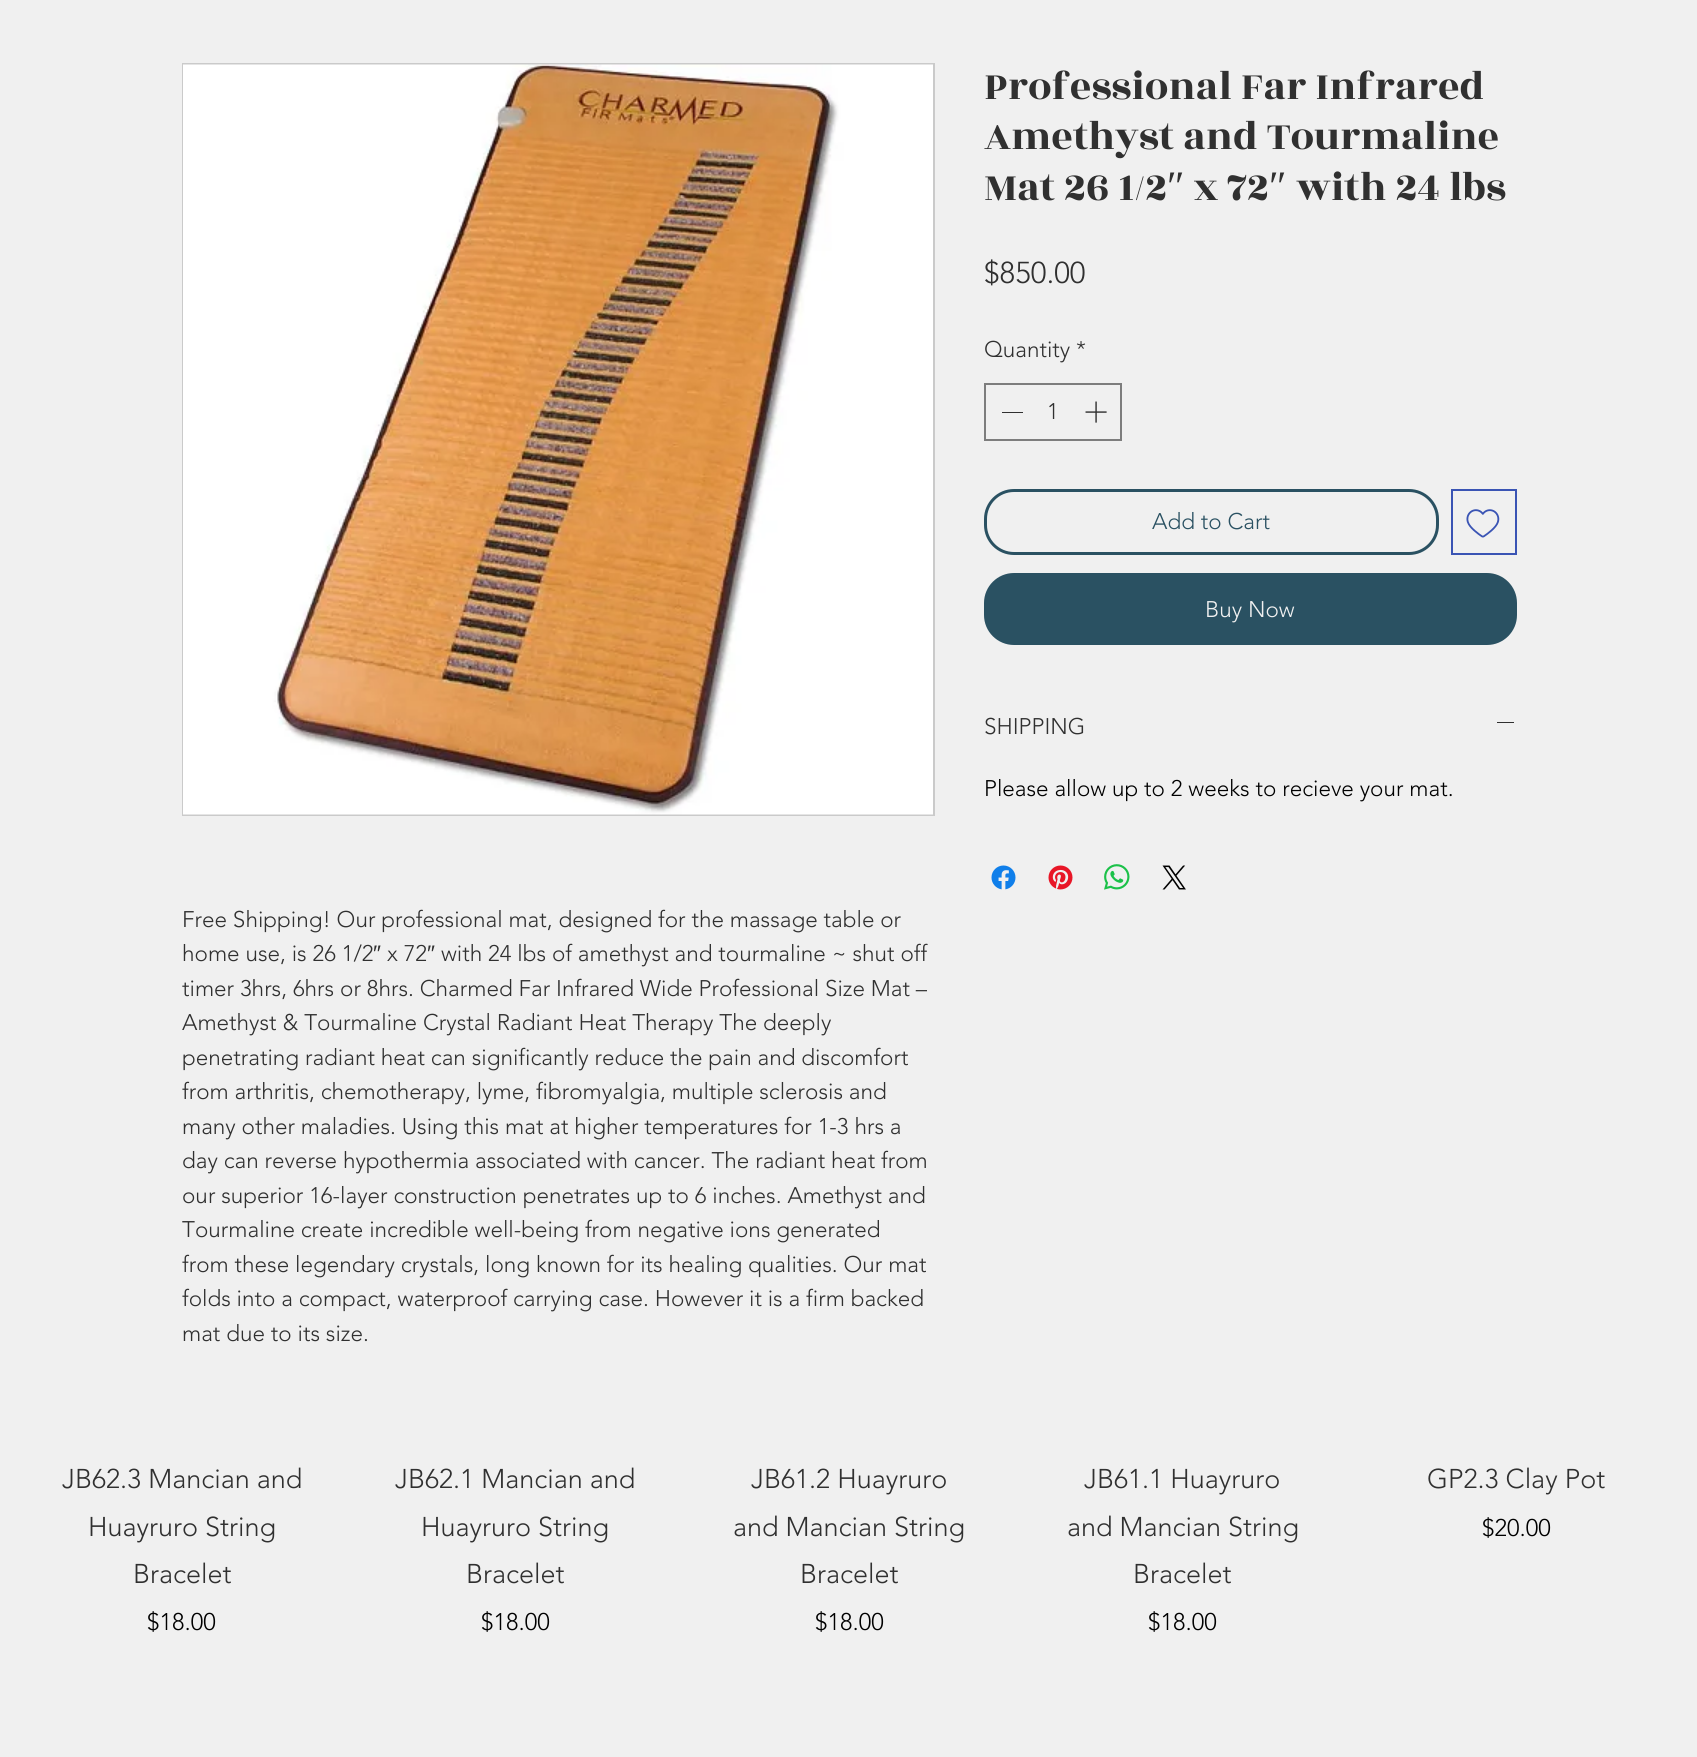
#include <cairo/cairo.h>
#include <math.h>
#include <stddef.h>


static void rounded_rect(cairo_t *cr, double x, double y, double w, double h, double r) {
  cairo_new_sub_path(cr);
  cairo_arc(cr, x + w - r, y + h - r, r, 0, M_PI / 2);
  cairo_arc(cr, x + r, y + h - r, r, M_PI / 2, M_PI);
  cairo_arc(cr, x + r, y + r, r, M_PI, 1.5 * M_PI);
  cairo_arc(cr, x + w - r, y + r, r, 1.5 * M_PI, 2 * M_PI);
  cairo_close_path(cr);
}

static void draw_image(cairo_t *cr, const char *path, double x, double y, double w, double h) {
  cairo_surface_t *image = cairo_image_surface_create_from_png(path);
  cairo_save(cr);
  cairo_set_source_surface(cr, image, x, y);
  cairo_rectangle(cr, x, y, w, h);
  cairo_fill(cr);
  cairo_restore(cr);
  cairo_surface_destroy(image);
}

static void draw(cairo_t *cr) {
  cairo_set_source_rgb(cr, 240 / 255.0, 240 / 255.0, 240 / 255.0);
  cairo_paint(cr);
  cairo_rectangle(cr, 985, 384, 136, 56);
  cairo_set_source_rgb(cr, 125 / 255.0, 125 / 255.0, 125 / 255.0);
  cairo_stroke(cr);
  cairo_set_source_rgb(cr, 48 / 255.0, 48 / 255.0, 48 / 255.0);
  cairo_rectangle(cr, 1002, 412, 21, 1);
  cairo_fill(cr);
  draw_image(cr, "images/1.png", 1085, 401, 22, 22);
  rounded_rect(cr, 985.5, 490.5, 452, 63, 28.5);
  cairo_set_source_rgb(cr, 42 / 255.0, 81 / 255.0, 98 / 255.0);
  cairo_set_line_width(cr, 3);
  cairo_stroke(cr);
  cairo_rectangle(cr, 1452, 490, 64, 64);
  cairo_set_source_rgb(cr, 58 / 255.0, 84 / 255.0, 180 / 255.0);
  cairo_set_line_width(cr, 2);
  cairo_stroke(cr);
  draw_image(cr, "images/2.png", 1466, 509, 34, 29);
  cairo_set_source_rgb(cr, 42 / 255.0, 81 / 255.0, 98 / 255.0);
  rounded_rect(cr, 984, 573, 533, 72, 30);
  cairo_fill(cr);
  cairo_set_source_rgb(cr, 48 / 255.0, 48 / 255.0, 48 / 255.0);
  cairo_rectangle(cr, 1497, 722, 17, 1);
  cairo_fill(cr);
  draw_image(cr, "images/3.png", 991, 865, 25, 25);
  draw_image(cr, "images/4.png", 1048, 865, 25, 25);
  draw_image(cr, "images/5.png", 1104, 864, 26, 26);
  draw_image(cr, "images/6.png", 1162, 865, 24, 25);
  cairo_rectangle(cr, 183, 64, 751, 751);
  cairo_set_source_rgb(cr, 202 / 255.0, 202 / 255.0, 202 / 255.0);
  cairo_stroke(cr);
  draw_image(cr, "images/7.png", 183, 64, 750, 751);
  cairo_select_font_face(cr, "Rozha One", CAIRO_FONT_SLANT_NORMAL, CAIRO_FONT_WEIGHT_NORMAL);
  cairo_set_font_size(cr, 42);
  cairo_set_source_rgb(cr, 48 / 255.0, 48 / 255.0, 48 / 255.0);
  cairo_move_to(cr, 984, 99);
  cairo_show_text(cr, "Professional Far Infrared");
  cairo_move_to(cr, 984, 149);
  cairo_show_text(cr, "Amethyst and Tourmaline");
  cairo_move_to(cr, 984, 200);
  cairo_show_text(cr, "Mat 26 1/2");
  cairo_select_font_face(cr, "Liberation Serif", CAIRO_FONT_SLANT_NORMAL, CAIRO_FONT_WEIGHT_NORMAL);
  cairo_move_to(cr, 1167, 200);
  cairo_show_text(cr, "″");
  cairo_select_font_face(cr, "Rozha One", CAIRO_FONT_SLANT_NORMAL, CAIRO_FONT_WEIGHT_NORMAL);
  cairo_move_to(cr, 1194, 200);
  cairo_show_text(cr, "x 72");
  cairo_select_font_face(cr, "Liberation Serif", CAIRO_FONT_SLANT_NORMAL, CAIRO_FONT_WEIGHT_NORMAL);
  cairo_move_to(cr, 1269, 200);
  cairo_show_text(cr, "″");
  cairo_select_font_face(cr, "Rozha One", CAIRO_FONT_SLANT_NORMAL, CAIRO_FONT_WEIGHT_NORMAL);
  cairo_move_to(cr, 1296, 200);
  cairo_show_text(cr, "with 24 lbs");
  cairo_select_font_face(cr, "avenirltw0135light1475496 Light", CAIRO_FONT_SLANT_NORMAL, CAIRO_FONT_WEIGHT_NORMAL);
  cairo_set_font_size(cr, 30);
  cairo_move_to(cr, 984, 283);
  cairo_show_text(cr, "$850.00");
  cairo_set_font_size(cr, 22.5);
  cairo_move_to(cr, 984, 357);
  cairo_show_text(cr, "Quantity *");
  cairo_move_to(cr, 1047, 419);
  cairo_show_text(cr, "1");
  cairo_set_source_rgb(cr, 42 / 255.0, 81 / 255.0, 98 / 255.0);
  cairo_move_to(cr, 1152, 529);
  cairo_show_text(cr, "Add to Cart");
  cairo_set_source_rgb(cr, 240 / 255.0, 240 / 255.0, 240 / 255.0);
  cairo_move_to(cr, 1205, 617);
  cairo_show_text(cr, "Buy Now");
  cairo_set_source_rgb(cr, 48 / 255.0, 48 / 255.0, 48 / 255.0);
  cairo_move_to(cr, 984, 734);
  cairo_show_text(cr, "SHIPPING");
  cairo_set_source_rgb(cr, 0, 0, 0);
  cairo_move_to(cr, 984, 796);
  cairo_show_text(cr, "Please allow up to 2 weeks to recieve your mat.");
  cairo_set_source_rgb(cr, 48 / 255.0, 48 / 255.0, 48 / 255.0);
  cairo_move_to(cr, 182, 927);
  cairo_show_text(cr, "Free Shipping! Our professional mat, designed for the massage table or");
  cairo_move_to(cr, 182, 961);
  cairo_show_text(cr, "home use, is 26 1/2");
  cairo_select_font_face(cr, "Liberation Sans", CAIRO_FONT_SLANT_NORMAL, CAIRO_FONT_WEIGHT_NORMAL);
  cairo_move_to(cr, 373, 961);
  cairo_show_text(cr, "″");
  cairo_select_font_face(cr, "avenirltw0135light1475496 Light", CAIRO_FONT_SLANT_NORMAL, CAIRO_FONT_WEIGHT_NORMAL);
  cairo_move_to(cr, 387, 961);
  cairo_show_text(cr, "x 72");
  cairo_select_font_face(cr, "Liberation Sans", CAIRO_FONT_SLANT_NORMAL, CAIRO_FONT_WEIGHT_NORMAL);
  cairo_move_to(cr, 427, 961);
  cairo_show_text(cr, "″");
  cairo_select_font_face(cr, "avenirltw0135light1475496 Light", CAIRO_FONT_SLANT_NORMAL, CAIRO_FONT_WEIGHT_NORMAL);
  cairo_move_to(cr, 441, 961);
  cairo_show_text(cr, "with 24 lbs of amethyst and tourmaline ~ shut off");
  cairo_move_to(cr, 182, 996);
  cairo_show_text(cr, "timer 3hrs, 6hrs or 8hrs. Charmed Far Infrared Wide Professional Size Mat –");
  cairo_move_to(cr, 182, 1030);
  cairo_show_text(cr, "Amethyst & Tourmaline Crystal Radiant Heat Therapy The deeply");
  cairo_move_to(cr, 182, 1065);
  cairo_show_text(cr, "penetrating radiant heat can significantly reduce the pain and discomfort");
  cairo_move_to(cr, 182, 1099);
  cairo_show_text(cr, "from arthritis, chemotherapy, lyme, fibromyalgia, multiple sclerosis and");
  cairo_move_to(cr, 182, 1134);
  cairo_show_text(cr, "many other maladies. Using this mat at higher temperatures for 1-3 hrs a");
  cairo_move_to(cr, 182, 1168);
  cairo_show_text(cr, "day can reverse hypothermia associated with cancer. The radiant heat from");
  cairo_move_to(cr, 182, 1203);
  cairo_show_text(cr, "our superior 16-layer construction penetrates up to 6 inches. Amethyst and");
  cairo_move_to(cr, 182, 1237);
  cairo_show_text(cr, "Tourmaline create incredible well-being from negative ions generated");
  cairo_move_to(cr, 182, 1272);
  cairo_show_text(cr, "from these legendary crystals, long known for its healing qualities. Our mat");
  cairo_move_to(cr, 182, 1306);
  cairo_show_text(cr, "folds into a compact, waterproof carrying case. However it is a firm backed");
  cairo_move_to(cr, 182, 1341);
  cairo_show_text(cr, "mat due to its size.");
  cairo_set_font_size(cr, 27);
  cairo_move_to(cr, 62, 1488);
  cairo_show_text(cr, "JB62.3 Mancian and");
  cairo_move_to(cr, 88, 1536);
  cairo_show_text(cr, "Huayruro String");
  cairo_move_to(cr, 133, 1583);
  cairo_show_text(cr, "Bracelet");
  cairo_set_font_size(cr, 24);
  cairo_set_source_rgb(cr, 0, 0, 0);
  cairo_move_to(cr, 147, 1630);
  cairo_show_text(cr, "$18.00");
  cairo_set_font_size(cr, 27);
  cairo_set_source_rgb(cr, 48 / 255.0, 48 / 255.0, 48 / 255.0);
  cairo_move_to(cr, 395, 1488);
  cairo_show_text(cr, "JB62.1 Mancian and");
  cairo_move_to(cr, 421, 1536);
  cairo_show_text(cr, "Huayruro String");
  cairo_move_to(cr, 466, 1583);
  cairo_show_text(cr, "Bracelet");
  cairo_set_font_size(cr, 24);
  cairo_set_source_rgb(cr, 0, 0, 0);
  cairo_move_to(cr, 481, 1630);
  cairo_show_text(cr, "$18.00");
  cairo_set_font_size(cr, 27);
  cairo_set_source_rgb(cr, 48 / 255.0, 48 / 255.0, 48 / 255.0);
  cairo_move_to(cr, 751, 1488);
  cairo_show_text(cr, "JB61.2 Huayruro");
  cairo_move_to(cr, 733, 1536);
  cairo_show_text(cr, "and Mancian String");
  cairo_move_to(cr, 800, 1583);
  cairo_show_text(cr, "Bracelet");
  cairo_set_font_size(cr, 24);
  cairo_set_source_rgb(cr, 0, 0, 0);
  cairo_move_to(cr, 815, 1630);
  cairo_show_text(cr, "$18.00");
  cairo_set_font_size(cr, 27);
  cairo_set_source_rgb(cr, 48 / 255.0, 48 / 255.0, 48 / 255.0);
  cairo_move_to(cr, 1084, 1488);
  cairo_show_text(cr, "JB61.1 Huayruro");
  cairo_move_to(cr, 1067, 1536);
  cairo_show_text(cr, "and Mancian String");
  cairo_move_to(cr, 1133, 1583);
  cairo_show_text(cr, "Bracelet");
  cairo_set_font_size(cr, 24);
  cairo_set_source_rgb(cr, 0, 0, 0);
  cairo_move_to(cr, 1148, 1630);
  cairo_show_text(cr, "$18.00");
  cairo_set_font_size(cr, 27);
  cairo_set_source_rgb(cr, 48 / 255.0, 48 / 255.0, 48 / 255.0);
  cairo_move_to(cr, 1427, 1488);
  cairo_show_text(cr, "GP2.3 Clay Pot");
  cairo_set_font_size(cr, 24);
  cairo_set_source_rgb(cr, 0, 0, 0);
  cairo_move_to(cr, 1482, 1536);
  cairo_show_text(cr, "$20.00");
}

int main(void) {
  cairo_surface_t *surface = cairo_image_surface_create(CAIRO_FORMAT_RGB24, 1697, 1757);
  cairo_t *cr = cairo_create(surface);
  cairo_font_options_t *options = cairo_font_options_create();
  cairo_font_options_set_hint_metrics(options, CAIRO_HINT_METRICS_OFF);
  cairo_font_options_set_hint_style(options, CAIRO_HINT_STYLE_NONE);
  cairo_set_font_options(cr, options);
  cairo_set_miter_limit(cr, 4);
  draw(cr);
  cairo_surface_write_to_png(surface, "out.png");
  cairo_font_options_destroy(options);
  cairo_destroy(cr);
  cairo_surface_destroy(surface);
  return 0;
}
